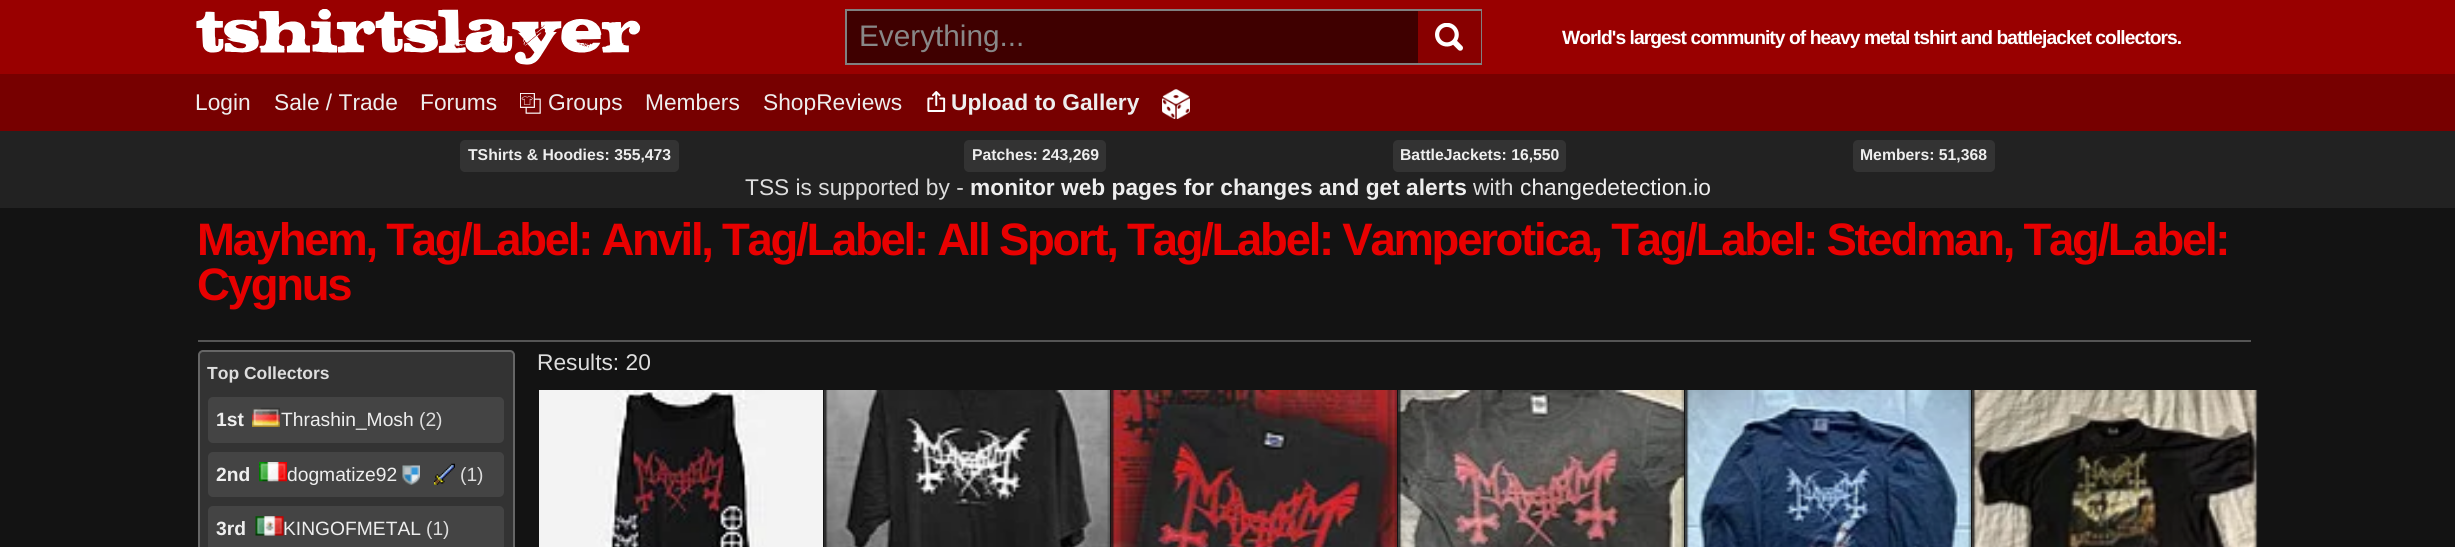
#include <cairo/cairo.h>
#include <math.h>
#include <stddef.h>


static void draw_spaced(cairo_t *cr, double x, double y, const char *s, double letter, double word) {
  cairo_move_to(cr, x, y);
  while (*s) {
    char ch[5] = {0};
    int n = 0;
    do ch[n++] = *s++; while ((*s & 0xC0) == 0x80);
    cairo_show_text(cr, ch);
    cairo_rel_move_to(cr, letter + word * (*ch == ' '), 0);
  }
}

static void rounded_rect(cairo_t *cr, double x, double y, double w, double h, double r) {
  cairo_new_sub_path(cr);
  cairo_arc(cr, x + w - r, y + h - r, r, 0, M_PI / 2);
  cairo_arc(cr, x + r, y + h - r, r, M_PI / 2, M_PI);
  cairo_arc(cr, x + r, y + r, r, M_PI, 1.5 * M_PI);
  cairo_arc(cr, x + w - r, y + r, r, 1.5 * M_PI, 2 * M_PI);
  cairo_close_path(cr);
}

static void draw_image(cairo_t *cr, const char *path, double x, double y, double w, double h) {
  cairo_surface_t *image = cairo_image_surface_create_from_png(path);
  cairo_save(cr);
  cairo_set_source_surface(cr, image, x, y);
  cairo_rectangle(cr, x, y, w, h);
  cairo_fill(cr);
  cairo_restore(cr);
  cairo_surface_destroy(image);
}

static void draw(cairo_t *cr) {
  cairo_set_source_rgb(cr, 19 / 255.0, 19 / 255.0, 19 / 255.0);
  cairo_paint(cr);
  cairo_set_source_rgb(cr, 153 / 255.0, 0, 0);
  cairo_rectangle(cr, 0, 0, 2455, 74);
  cairo_fill(cr);
  draw_image(cr, "images/1.png", 196, 9, 445, 56);
  cairo_rectangle(cr, 846, 10, 635, 54);
  cairo_set_source_rgb(cr, 128 / 255.0, 128 / 255.0, 128 / 255.0);
  cairo_stroke(cr);
  cairo_set_source_rgb(cr, 63 / 255.0, 0, 0);
  cairo_rectangle(cr, 847, 11, 571, 52);
  cairo_fill(cr);
  cairo_set_source_rgb(cr, 136 / 255.0, 0, 0);
  cairo_rectangle(cr, 1418, 11, 63, 52);
  cairo_fill(cr);
  draw_image(cr, "images/2.png", 1435, 23, 28, 28);
  cairo_set_source_rgb(cr, 119 / 255.0, 0, 0);
  cairo_rectangle(cr, 0, 74, 2455, 57);
  cairo_fill(cr);
  draw_image(cr, "images/3.png", 520, 93, 21, 21);
  draw_image(cr, "images/4.png", 927, 91, 19, 21);
  draw_image(cr, "images/5.png", 1162, 89, 28, 30);
  cairo_set_source_rgb(cr, 34 / 255.0, 34 / 255.0, 34 / 255.0);
  cairo_rectangle(cr, 0, 131, 2455, 77);
  cairo_fill(cr);
  cairo_set_source_rgb(cr, 51 / 255.0, 51 / 255.0, 51 / 255.0);
  rounded_rect(cr, 460, 140, 219, 32, 5);
  cairo_fill(cr);
  rounded_rect(cr, 964, 140, 142, 32, 5);
  cairo_fill(cr);
  rounded_rect(cr, 1393, 140, 173, 32, 5);
  cairo_fill(cr);
  rounded_rect(cr, 1853, 140, 142, 32, 5);
  cairo_fill(cr);
  cairo_set_source_rgb(cr, 85 / 255.0, 85 / 255.0, 85 / 255.0);
  cairo_rectangle(cr, 198, 340, 2053, 2);
  cairo_fill(cr);
  draw_image(cr, "images/6.png", 539, 390, 284, 157);
  draw_image(cr, "images/7.png", 824, 390, 286, 157);
  draw_image(cr, "images/8.png", 1111, 390, 286, 157);
  draw_image(cr, "images/9.png", 1398, 390, 286, 157);
  draw_image(cr, "images/10.png", 1685, 390, 286, 157);
  draw_image(cr, "images/11.png", 1972, 390, 286, 157);
  cairo_set_source_rgb(cr, 51 / 255.0, 51 / 255.0, 51 / 255.0);
  rounded_rect(cr, 199, 351, 315, 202, 4);
  cairo_fill_preserve(cr);
  cairo_set_source_rgb(cr, 102 / 255.0, 102 / 255.0, 102 / 255.0);
  cairo_stroke(cr);
  cairo_set_source_rgb(cr, 68 / 255.0, 68 / 255.0, 68 / 255.0);
  rounded_rect(cr, 208, 397, 296, 46, 5);
  cairo_fill(cr);
  draw_image(cr, "images/12.png", 252, 407, 28, 20);
  rounded_rect(cr, 208, 452, 296, 45, 5);
  cairo_fill(cr);
  draw_image(cr, "images/13.png", 434, 463, 21, 22);
  draw_image(cr, "images/14.png", 259, 462, 28, 20);
  draw_image(cr, "images/15.png", 402, 465, 18, 20);
  rounded_rect(cr, 208, 506, 296, 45, 5);
  cairo_fill(cr);
  draw_image(cr, "images/16.png", 255, 516, 29, 20);
  cairo_select_font_face(cr, "Liberation Sans", CAIRO_FONT_SLANT_NORMAL, CAIRO_FONT_WEIGHT_NORMAL);
  cairo_set_font_size(cr, 29.75);
  cairo_set_source_rgb(cr, 136 / 255.0, 136 / 255.0, 136 / 255.0);
  cairo_move_to(cr, 859, 46);
  cairo_show_text(cr, "Everything...");
  cairo_select_font_face(cr, "Liberation Sans", CAIRO_FONT_SLANT_NORMAL, CAIRO_FONT_WEIGHT_BOLD);
  cairo_set_font_size(cr, 19.25);
  cairo_set_source_rgb(cr, 1, 1, 1);
  draw_spaced(cr, 1562, 44, "World's largest community of heavy metal tshirt and battlejacket collectors.", -0.95, 0);
  cairo_select_font_face(cr, "Liberation Sans", CAIRO_FONT_SLANT_NORMAL, CAIRO_FONT_WEIGHT_NORMAL);
  cairo_set_font_size(cr, 22.75);
  cairo_set_source_rgb(cr, 238 / 255.0, 238 / 255.0, 238 / 255.0);
  cairo_move_to(cr, 195, 110);
  cairo_show_text(cr, "Login");
  cairo_move_to(cr, 274, 110);
  cairo_show_text(cr, "Sale / Trade");
  cairo_move_to(cr, 420, 110);
  cairo_show_text(cr, "Forums");
  cairo_move_to(cr, 548, 110);
  cairo_show_text(cr, "Groups");
  cairo_move_to(cr, 645, 110);
  cairo_show_text(cr, "Members");
  cairo_move_to(cr, 763, 110);
  cairo_show_text(cr, "ShopReviews");
  cairo_select_font_face(cr, "Liberation Sans", CAIRO_FONT_SLANT_NORMAL, CAIRO_FONT_WEIGHT_BOLD);
  cairo_move_to(cr, 951, 110);
  cairo_show_text(cr, "Upload to Gallery");
  cairo_set_font_size(cr, 15.75);
  cairo_move_to(cr, 468, 160);
  cairo_show_text(cr, "TShirts & Hoodies: 355,473");
  cairo_move_to(cr, 972, 160);
  cairo_show_text(cr, "Patches: 243,269");
  cairo_move_to(cr, 1400, 160);
  cairo_show_text(cr, "BattleJackets: 16,550");
  cairo_move_to(cr, 1860, 160);
  cairo_show_text(cr, "Members: 51,368");
  cairo_select_font_face(cr, "Liberation Sans", CAIRO_FONT_SLANT_NORMAL, CAIRO_FONT_WEIGHT_NORMAL);
  cairo_set_font_size(cr, 22.75);
  cairo_set_source_rgb(cr, 221 / 255.0, 221 / 255.0, 221 / 255.0);
  cairo_move_to(cr, 745, 195);
  cairo_show_text(cr, "TSS is supported by ‐");
  cairo_select_font_face(cr, "Liberation Sans", CAIRO_FONT_SLANT_NORMAL, CAIRO_FONT_WEIGHT_BOLD);
  cairo_set_source_rgb(cr, 238 / 255.0, 238 / 255.0, 238 / 255.0);
  cairo_move_to(cr, 970, 195);
  cairo_show_text(cr, "monitor web pages for changes and get alerts");
  cairo_select_font_face(cr, "Liberation Sans", CAIRO_FONT_SLANT_NORMAL, CAIRO_FONT_WEIGHT_NORMAL);
  cairo_set_source_rgb(cr, 221 / 255.0, 221 / 255.0, 221 / 255.0);
  cairo_move_to(cr, 1473, 195);
  cairo_show_text(cr, "with");
  cairo_set_source_rgb(cr, 238 / 255.0, 238 / 255.0, 238 / 255.0);
  cairo_move_to(cr, 1520, 195);
  cairo_show_text(cr, "changedetection.io");
  cairo_select_font_face(cr, "Liberation Sans", CAIRO_FONT_SLANT_NORMAL, CAIRO_FONT_WEIGHT_BOLD);
  cairo_set_font_size(cr, 45.5);
  cairo_set_source_rgb(cr, 232 / 255.0, 0, 0);
  draw_spaced(cr, 197, 255, "Mayhem, Tag/Label: Anvil, Tag/Label: All Sport, Tag/Label: Vamperotica, Tag/Label: Stedman, Tag/Label:", -2.27, 0);
  draw_spaced(cr, 197, 300, "Cygnus", -2.27, 0);
  cairo_select_font_face(cr, "Liberation Sans", CAIRO_FONT_SLANT_NORMAL, CAIRO_FONT_WEIGHT_NORMAL);
  cairo_set_font_size(cr, 22.75);
  cairo_set_source_rgb(cr, 221 / 255.0, 221 / 255.0, 221 / 255.0);
  cairo_move_to(cr, 537, 370);
  cairo_show_text(cr, "Results: 20");
  cairo_select_font_face(cr, "Liberation Sans", CAIRO_FONT_SLANT_NORMAL, CAIRO_FONT_WEIGHT_BOLD);
  cairo_set_font_size(cr, 17.5);
  cairo_move_to(cr, 207, 379);
  cairo_show_text(cr, "Top Collectors");
  cairo_set_font_size(cr, 19.25);
  cairo_set_source_rgb(cr, 238 / 255.0, 238 / 255.0, 238 / 255.0);
  cairo_move_to(cr, 216, 426);
  cairo_show_text(cr, "1st");
  cairo_select_font_face(cr, "Liberation Sans", CAIRO_FONT_SLANT_NORMAL, CAIRO_FONT_WEIGHT_NORMAL);
  cairo_move_to(cr, 281, 426);
  cairo_show_text(cr, "Thrashin_Mosh");
  cairo_set_source_rgb(cr, 221 / 255.0, 221 / 255.0, 221 / 255.0);
  cairo_move_to(cr, 419, 426);
  cairo_show_text(cr, "(2)");
  cairo_select_font_face(cr, "Liberation Sans", CAIRO_FONT_SLANT_NORMAL, CAIRO_FONT_WEIGHT_BOLD);
  cairo_set_source_rgb(cr, 238 / 255.0, 238 / 255.0, 238 / 255.0);
  cairo_move_to(cr, 216, 481);
  cairo_show_text(cr, "2nd");
  cairo_select_font_face(cr, "Liberation Sans", CAIRO_FONT_SLANT_NORMAL, CAIRO_FONT_WEIGHT_NORMAL);
  cairo_move_to(cr, 287, 481);
  cairo_show_text(cr, "dogmatize92");
  cairo_set_source_rgb(cr, 221 / 255.0, 221 / 255.0, 221 / 255.0);
  cairo_move_to(cr, 460, 481);
  cairo_show_text(cr, "(1)");
  cairo_select_font_face(cr, "Liberation Sans", CAIRO_FONT_SLANT_NORMAL, CAIRO_FONT_WEIGHT_BOLD);
  cairo_set_source_rgb(cr, 238 / 255.0, 238 / 255.0, 238 / 255.0);
  cairo_move_to(cr, 216, 535);
  cairo_show_text(cr, "3rd");
  cairo_select_font_face(cr, "Liberation Sans", CAIRO_FONT_SLANT_NORMAL, CAIRO_FONT_WEIGHT_NORMAL);
  cairo_move_to(cr, 283, 535);
  cairo_show_text(cr, "KINGOFMETAL");
  cairo_set_source_rgb(cr, 221 / 255.0, 221 / 255.0, 221 / 255.0);
  cairo_move_to(cr, 426, 535);
  cairo_show_text(cr, "(1)");
}

int main(void) {
  cairo_surface_t *surface = cairo_image_surface_create(CAIRO_FORMAT_RGB24, 2455, 547);
  cairo_t *cr = cairo_create(surface);
  cairo_font_options_t *options = cairo_font_options_create();
  cairo_font_options_set_hint_metrics(options, CAIRO_HINT_METRICS_OFF);
  cairo_font_options_set_hint_style(options, CAIRO_HINT_STYLE_NONE);
  cairo_set_font_options(cr, options);
  cairo_set_miter_limit(cr, 4);
  draw(cr);
  cairo_surface_write_to_png(surface, "out.png");
  cairo_font_options_destroy(options);
  cairo_destroy(cr);
  cairo_surface_destroy(surface);
  return 0;
}
